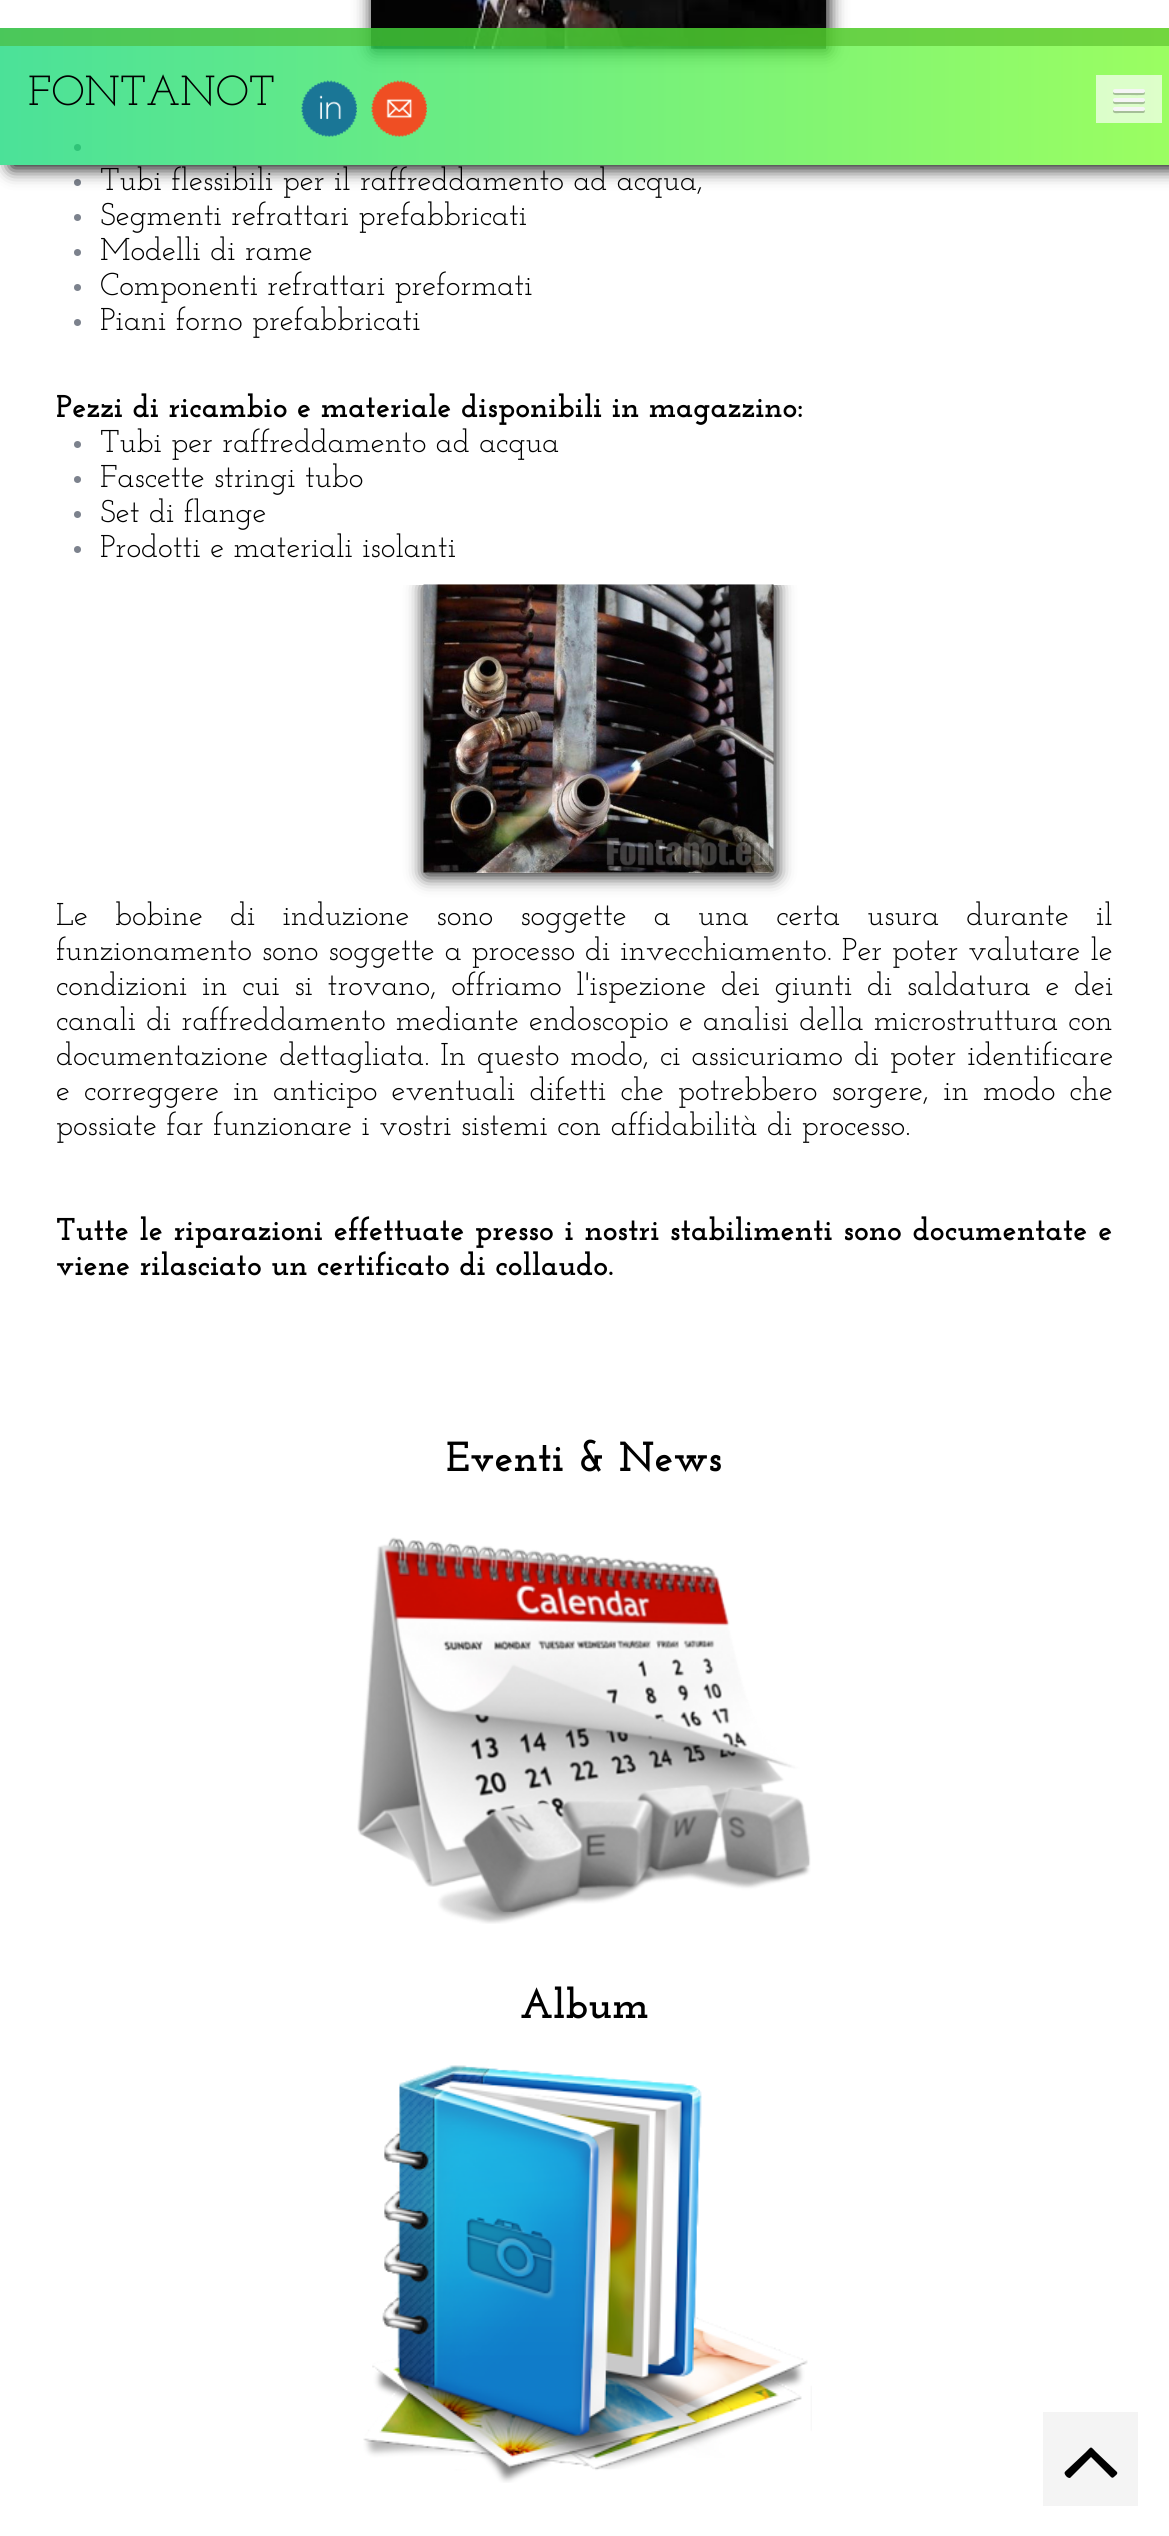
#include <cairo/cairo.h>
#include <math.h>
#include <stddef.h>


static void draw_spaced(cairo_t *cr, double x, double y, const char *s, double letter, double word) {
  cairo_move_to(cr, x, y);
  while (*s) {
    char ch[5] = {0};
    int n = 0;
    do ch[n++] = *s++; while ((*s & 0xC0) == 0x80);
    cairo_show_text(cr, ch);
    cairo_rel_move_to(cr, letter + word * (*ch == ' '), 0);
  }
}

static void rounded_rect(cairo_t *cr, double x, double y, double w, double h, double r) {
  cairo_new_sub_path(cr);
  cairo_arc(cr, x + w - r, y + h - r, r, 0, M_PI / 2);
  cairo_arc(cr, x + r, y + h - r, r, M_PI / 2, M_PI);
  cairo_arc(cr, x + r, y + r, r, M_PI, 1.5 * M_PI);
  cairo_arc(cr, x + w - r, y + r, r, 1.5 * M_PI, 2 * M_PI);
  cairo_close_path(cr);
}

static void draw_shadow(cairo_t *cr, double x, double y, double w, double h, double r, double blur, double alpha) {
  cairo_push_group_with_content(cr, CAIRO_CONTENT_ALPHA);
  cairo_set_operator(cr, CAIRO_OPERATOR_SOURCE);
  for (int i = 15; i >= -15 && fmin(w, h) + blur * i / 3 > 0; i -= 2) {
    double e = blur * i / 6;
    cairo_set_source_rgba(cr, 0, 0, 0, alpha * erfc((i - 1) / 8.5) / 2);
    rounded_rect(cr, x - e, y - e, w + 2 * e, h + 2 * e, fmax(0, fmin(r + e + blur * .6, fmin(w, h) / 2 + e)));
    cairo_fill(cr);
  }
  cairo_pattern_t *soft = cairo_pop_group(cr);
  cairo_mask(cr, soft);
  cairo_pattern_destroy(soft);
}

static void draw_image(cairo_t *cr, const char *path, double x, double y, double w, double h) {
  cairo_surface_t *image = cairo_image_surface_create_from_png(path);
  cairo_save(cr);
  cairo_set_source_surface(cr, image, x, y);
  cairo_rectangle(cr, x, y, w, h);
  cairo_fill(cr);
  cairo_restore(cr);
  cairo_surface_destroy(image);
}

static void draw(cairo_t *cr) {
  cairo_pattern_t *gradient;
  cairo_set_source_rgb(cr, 1, 1, 1);
  cairo_paint(cr);
  cairo_set_source_rgb(cr, 0, 0, 0);
  draw_shadow(cr, 373, -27, 455, 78, 0, 9, 1);
  draw_image(cr, "images/3.png", 371, 0, 455, 49);
  cairo_set_source_rgb(cr, 124 / 255.0, 130 / 255.0, 141 / 255.0);
  cairo_arc(cr, 77.5, 147.5, 3.5, 0, 2 * M_PI);
  cairo_fill(cr);
  cairo_arc(cr, 77.5, 182.5, 3.5, 0, 2 * M_PI);
  cairo_fill(cr);
  cairo_save(cr);
  cairo_set_fill_rule(cr, CAIRO_FILL_RULE_EVEN_ODD);
  cairo_new_path(cr);
  cairo_move_to(cr, 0, 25);
  cairo_line_to(cr, 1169, 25);
  cairo_line_to(cr, 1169, 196);
  cairo_line_to(cr, 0, 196);
  cairo_close_path(cr);
  cairo_move_to(cr, 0, 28);
  cairo_line_to(cr, 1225, 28);
  cairo_line_to(cr, 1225, 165);
  cairo_line_to(cr, 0, 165);
  cairo_close_path(cr);
  cairo_clip(cr);
  cairo_set_source_rgb(cr, 0, 0, 0);
  draw_shadow(cr, 11, 53, 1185, 115, 0, 9, 1);
  cairo_restore(cr);
  gradient = cairo_pattern_create_linear(0, 105, 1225, 105);
  cairo_pattern_add_color_stop_rgba(gradient, 0, 15 / 255.0, 215 / 255.0, 118 / 255.0, 0.75);
  cairo_pattern_add_color_stop_rgba(gradient, 1, 126 / 255.0, 1, 41 / 255.0, 0.75);
  cairo_set_source(cr, gradient);
  cairo_pattern_destroy(gradient);
  cairo_rectangle(cr, 0, 28, 1169, 137);
  cairo_fill(cr);
  cairo_set_source_rgba(cr, 75 / 255.0, 175 / 255.0, 29 / 255.0, 0.5);
  cairo_rectangle(cr, 0, 28, 1169, 18);
  cairo_fill(cr);
  draw_image(cr, "images/1.png", 301, 80, 56, 57);
  draw_image(cr, "images/2.png", 371, 80, 56, 57);
  cairo_set_source_rgba(cr, 1, 1, 1, 0.66);
  cairo_rectangle(cr, 1096, 75, 66, 48);
  cairo_fill(cr);
  cairo_set_source_rgb(cr, 165 / 255.0, 191 / 255.0, 152 / 255.0);
  cairo_new_path(cr);
  cairo_move_to(cr, 1113.5, 92);
  cairo_curve_to(cr, 1111, 96, 1119, 95, 1119.5, 95);
  cairo_line_to(cr, 1129, 95);
  cairo_curve_to(cr, 1131.5, 95, 1143, 95.5, 1144.5, 94.5);
  cairo_curve_to(cr, 1145, 93.5, 1145, 92.5, 1144.5, 91.5);
  cairo_line_to(cr, 1143.5, 92.5);
  cairo_line_to(cr, 1114.5, 92.5);
  cairo_close_path(cr);
  cairo_fill(cr);
  cairo_set_source_rgb(cr, 245 / 255.0, 245 / 255.0, 245 / 255.0);
  rounded_rect(cr, 1113, 89, 32, 4, 2);
  cairo_fill(cr);
  cairo_set_source_rgb(cr, 165 / 255.0, 191 / 255.0, 152 / 255.0);
  cairo_new_path(cr);
  cairo_move_to(cr, 1113.5, 101);
  cairo_line_to(cr, 1113, 102.5);
  cairo_curve_to(cr, 1113.5, 105, 1118.5, 104, 1119.5, 104);
  cairo_line_to(cr, 1138.5, 104);
  cairo_curve_to(cr, 1140, 104, 1145, 105, 1145, 102);
  cairo_line_to(cr, 1144.5, 100.5);
  cairo_curve_to(cr, 1144, 101, 1143.5, 101.5, 1143, 101.5);
  cairo_line_to(cr, 1114.5, 101.5);
  cairo_close_path(cr);
  cairo_fill(cr);
  cairo_set_source_rgb(cr, 245 / 255.0, 245 / 255.0, 245 / 255.0);
  rounded_rect(cr, 1113, 98, 32, 4, 2);
  cairo_fill(cr);
  cairo_set_source_rgb(cr, 165 / 255.0, 191 / 255.0, 152 / 255.0);
  cairo_new_path(cr);
  cairo_move_to(cr, 1113.5, 109.5);
  cairo_curve_to(cr, 1113, 110, 1113, 111, 1113, 111.5);
  cairo_curve_to(cr, 1113.5, 114, 1118.5, 113, 1119.5, 113);
  cairo_line_to(cr, 1143, 113);
  cairo_curve_to(cr, 1145, 113, 1145.5, 110.5, 1144, 109.5);
  cairo_line_to(cr, 1143, 110);
  cairo_line_to(cr, 1114.5, 110);
  cairo_close_path(cr);
  cairo_fill(cr);
  cairo_set_source_rgb(cr, 245 / 255.0, 245 / 255.0, 245 / 255.0);
  rounded_rect(cr, 1113, 107, 32, 4, 2);
  cairo_fill(cr);
  cairo_set_source_rgb(cr, 124 / 255.0, 130 / 255.0, 141 / 255.0);
  cairo_arc(cr, 77.5, 217.5, 3.5, 0, 2 * M_PI);
  cairo_fill(cr);
  cairo_arc(cr, 77.5, 252.5, 3.5, 0, 2 * M_PI);
  cairo_fill(cr);
  cairo_arc(cr, 77.5, 287.5, 3.5, 0, 2 * M_PI);
  cairo_fill(cr);
  cairo_arc(cr, 77.5, 322.5, 3.5, 0, 2 * M_PI);
  cairo_fill(cr);
  cairo_arc(cr, 77.5, 444.5, 3.5, 0, 2 * M_PI);
  cairo_fill(cr);
  cairo_arc(cr, 77.5, 479.5, 3.5, 0, 2 * M_PI);
  cairo_fill(cr);
  cairo_arc(cr, 77.5, 514.5, 3.5, 0, 2 * M_PI);
  cairo_fill(cr);
  cairo_arc(cr, 77.5, 549.5, 3.5, 0, 2 * M_PI);
  cairo_fill(cr);
  cairo_save(cr);
  cairo_rectangle(cr, 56, 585, 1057, 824);
  cairo_clip(cr);
  cairo_set_source_rgb(cr, 0, 0, 0);
  draw_shadow(cr, 425, 586, 350, 289, 0, 9, 1);
  cairo_restore(cr);
  draw_image(cr, "images/4.png", 423, 584, 351, 289);
  draw_image(cr, "images/5.png", 357, 1537, 454, 387);
  draw_image(cr, "images/6.png", 363, 2065, 449, 418);
  cairo_set_source_rgb(cr, 244 / 255.0, 244 / 255.0, 244 / 255.0);
  cairo_rectangle(cr, 1043, 2412, 95, 94);
  cairo_fill(cr);
  cairo_set_source_rgb(cr, 0, 0, 0);
  cairo_new_path(cr);
  cairo_move_to(cr, 1117, 2472);
  cairo_curve_to(cr, 1118, 2474, 1116, 2475, 1115, 2476);
  cairo_curve_to(cr, 1112, 2479, 1112, 2478, 1108, 2474);
  cairo_line_to(cr, 1091, 2457);
  cairo_line_to(cr, 1070, 2478);
  cairo_curve_to(cr, 1068, 2478, 1067, 2477, 1066, 2476);
  cairo_curve_to(cr, 1063, 2472, 1065, 2472, 1069, 2468);
  cairo_line_to(cr, 1086, 2452);
  cairo_curve_to(cr, 1092, 2446, 1090, 2446, 1096, 2452);
  cairo_close_path(cr);
  cairo_fill(cr);
  cairo_select_font_face(cr, "Josefin Slab", CAIRO_FONT_SLANT_NORMAL, CAIRO_FONT_WEIGHT_NORMAL);
  cairo_set_font_size(cr, 42);
  cairo_move_to(cr, 28, 105);
  cairo_show_text(cr, "FONTANOT");
  cairo_set_font_size(cr, 31.5);
  cairo_move_to(cr, 100, 190);
  cairo_show_text(cr, "Tubi flessibili per il raffreddamento ad acqua,");
  cairo_move_to(cr, 100, 225);
  cairo_show_text(cr, "Segmenti refrattari prefabbricati");
  cairo_move_to(cr, 100, 260);
  cairo_show_text(cr, "Modelli di rame");
  cairo_move_to(cr, 100, 295);
  cairo_show_text(cr, "Componenti refrattari preformati");
  cairo_move_to(cr, 100, 330);
  cairo_show_text(cr, "Piani forno prefabbricati");
  cairo_select_font_face(cr, "Josefin Slab", CAIRO_FONT_SLANT_NORMAL, CAIRO_FONT_WEIGHT_BOLD);
  cairo_move_to(cr, 56, 417);
  cairo_show_text(cr, "Pezzi di ricambio e materiale disponibili in magazzino:");
  cairo_select_font_face(cr, "Josefin Slab", CAIRO_FONT_SLANT_NORMAL, CAIRO_FONT_WEIGHT_NORMAL);
  cairo_move_to(cr, 100, 452);
  cairo_show_text(cr, "Tubi per raffreddamento ad acqua");
  cairo_move_to(cr, 100, 487);
  cairo_show_text(cr, "Fascette stringi tubo");
  cairo_move_to(cr, 100, 522);
  cairo_show_text(cr, "Set di flange");
  cairo_move_to(cr, 100, 557);
  cairo_show_text(cr, "Prodotti e materiali isolanti");
  draw_spaced(cr, 56, 925, "Le bobine di induzione sono soggette a una certa usura durante il", 0, 17.75);
  draw_spaced(cr, 56, 960, "funzionamento sono soggette a processo di invecchiamento. Per poter valutare le", 0, 0.5);
  draw_spaced(cr, 56, 995, "condizioni in cui si trovano, offriamo l'ispezione dei giunti di saldatura e dei", 0, 5.25);
  draw_spaced(cr, 56, 1030, "canali di raffreddamento mediante endoscopio e analisi della microstruttura con", 0, 0.75);
  draw_spaced(cr, 56, 1065, "documentazione dettagliata. In questo modo, ci assicuriamo di poter identificare", 0, 1.5);
  draw_spaced(cr, 56, 1100, "e correggere in anticipo eventuali difetti che potrebbero sorgere, in modo che", 0, 4.75);
  cairo_move_to(cr, 56, 1135);
  cairo_show_text(cr, "possiate far funzionare i vostri sistemi con affidabilità di processo.");
  cairo_select_font_face(cr, "Josefin Slab", CAIRO_FONT_SLANT_NORMAL, CAIRO_FONT_WEIGHT_BOLD);
  draw_spaced(cr, 56, 1240, "Tutte le riparazioni effettuate presso i nostri stabilimenti sono documentate e", 0, 1.25);
  cairo_move_to(cr, 56, 1275);
  cairo_show_text(cr, "viene rilasciato un certificato di collaudo.");
  cairo_set_font_size(cr, 42);
  cairo_move_to(cr, 446, 1471);
  cairo_show_text(cr, "Eventi & News");
  cairo_move_to(cr, 520, 2018);
  cairo_show_text(cr, "Album");
}

int main(void) {
  cairo_surface_t *surface = cairo_image_surface_create(CAIRO_FORMAT_RGB24, 1169, 2536);
  cairo_t *cr = cairo_create(surface);
  cairo_font_options_t *options = cairo_font_options_create();
  cairo_font_options_set_hint_metrics(options, CAIRO_HINT_METRICS_OFF);
  cairo_font_options_set_hint_style(options, CAIRO_HINT_STYLE_NONE);
  cairo_set_font_options(cr, options);
  cairo_set_miter_limit(cr, 4);
  draw(cr);
  cairo_surface_write_to_png(surface, "out.png");
  cairo_font_options_destroy(options);
  cairo_destroy(cr);
  cairo_surface_destroy(surface);
  return 0;
}
